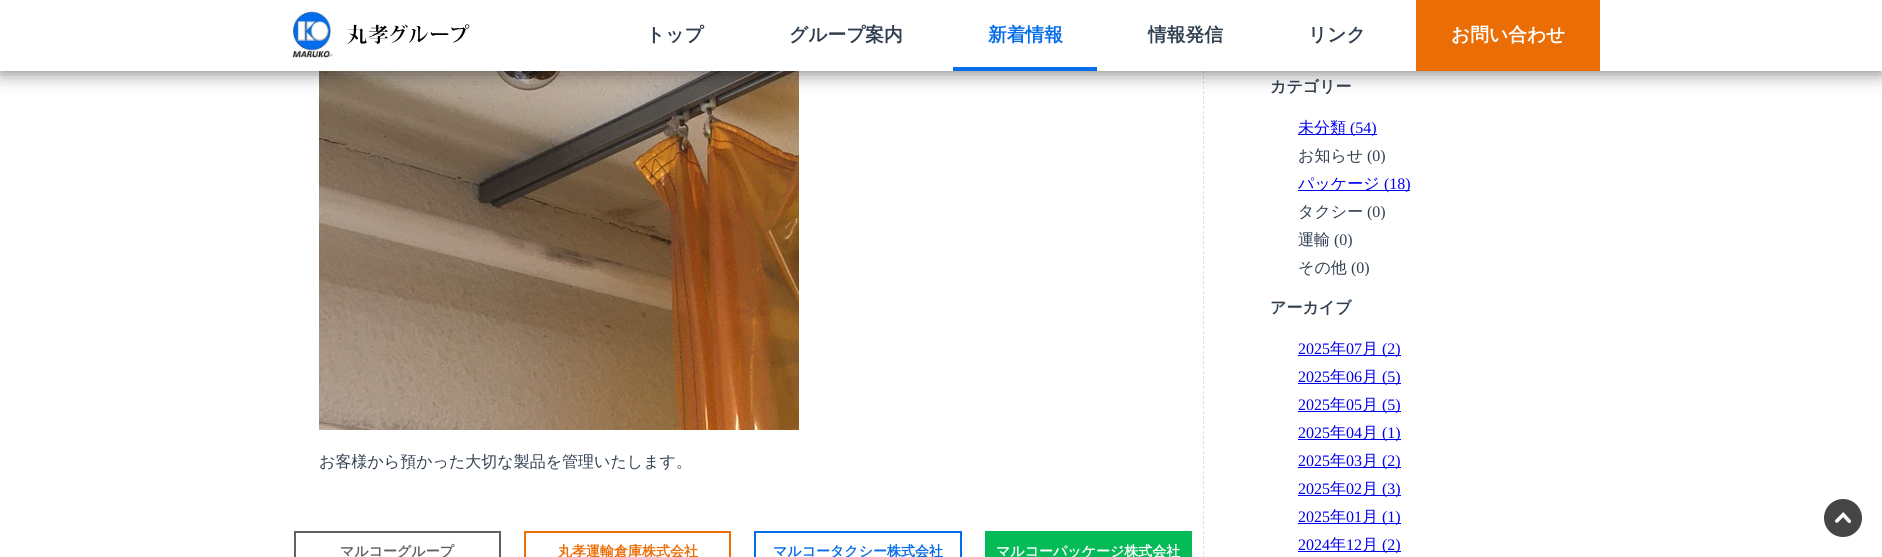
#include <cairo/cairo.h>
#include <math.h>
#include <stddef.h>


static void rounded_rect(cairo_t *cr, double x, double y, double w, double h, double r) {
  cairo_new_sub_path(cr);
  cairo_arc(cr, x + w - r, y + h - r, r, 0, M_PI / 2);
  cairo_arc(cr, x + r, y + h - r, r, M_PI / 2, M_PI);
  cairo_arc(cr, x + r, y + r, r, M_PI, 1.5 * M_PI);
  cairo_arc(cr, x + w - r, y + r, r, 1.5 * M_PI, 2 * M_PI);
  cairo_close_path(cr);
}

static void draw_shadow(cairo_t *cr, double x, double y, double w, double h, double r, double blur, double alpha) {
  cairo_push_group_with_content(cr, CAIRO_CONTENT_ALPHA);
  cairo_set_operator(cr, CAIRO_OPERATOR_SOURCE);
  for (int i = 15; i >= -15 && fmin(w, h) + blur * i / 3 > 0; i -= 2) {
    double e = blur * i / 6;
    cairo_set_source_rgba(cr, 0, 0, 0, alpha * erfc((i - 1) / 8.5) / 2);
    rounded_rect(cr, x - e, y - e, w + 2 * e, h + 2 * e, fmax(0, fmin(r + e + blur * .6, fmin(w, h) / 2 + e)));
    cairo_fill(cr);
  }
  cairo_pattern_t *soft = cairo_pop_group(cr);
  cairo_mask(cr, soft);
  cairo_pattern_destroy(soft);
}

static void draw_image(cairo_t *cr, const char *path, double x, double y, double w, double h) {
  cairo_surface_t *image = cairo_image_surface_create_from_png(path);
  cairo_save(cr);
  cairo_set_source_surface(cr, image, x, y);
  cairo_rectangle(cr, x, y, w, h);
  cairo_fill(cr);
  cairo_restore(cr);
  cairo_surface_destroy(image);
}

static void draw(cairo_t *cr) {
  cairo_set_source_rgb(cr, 1, 1, 1);
  cairo_paint(cr);
  cairo_new_path(cr);
  cairo_move_to(cr, 1203.5, -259);
  cairo_line_to(cr, 1203.5, 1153);
  cairo_set_source_rgb(cr, 223 / 255.0, 223 / 255.0, 223 / 255.0);
  cairo_set_line_width(cr, 1);
  cairo_set_dash(cr, (double[]){3, 2}, 2, 0);
  cairo_stroke(cr);
  draw_image(cr, "images/2.png", 319, 71, 480, 359);
  cairo_set_source_rgb(cr, 0, 0, 0);
  draw_shadow(cr, 0, 0, 1882, 71, 0, 10, 0.6);
  cairo_set_source_rgb(cr, 1, 1, 1);
  cairo_rectangle(cr, 0, 0, 1882, 71);
  cairo_fill(cr);
  draw_image(cr, "images/1.png", 292, 11, 178, 47);
  cairo_set_source_rgb(cr, 6 / 255.0, 109 / 255.0, 234 / 255.0);
  cairo_rectangle(cr, 953, 67, 144, 4);
  cairo_fill(cr);
  cairo_set_source_rgb(cr, 234 / 255.0, 109 / 255.0, 6 / 255.0);
  cairo_rectangle(cr, 1416, 0, 184, 71);
  cairo_fill(cr);
  cairo_rectangle(cr, 295, 532, 205, 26);
  cairo_set_source_rgb(cr, 96 / 255.0, 96 / 255.0, 96 / 255.0);
  cairo_set_line_width(cr, 2);
  cairo_set_dash(cr, NULL, 0, 0);
  cairo_stroke(cr);
  cairo_rectangle(cr, 525, 532, 205, 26);
  cairo_set_source_rgb(cr, 234 / 255.0, 109 / 255.0, 6 / 255.0);
  cairo_stroke(cr);
  cairo_rectangle(cr, 755, 532, 206, 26);
  cairo_set_source_rgb(cr, 6 / 255.0, 109 / 255.0, 234 / 255.0);
  cairo_stroke(cr);
  cairo_set_source_rgb(cr, 5 / 255.0, 187 / 255.0, 87 / 255.0);
  cairo_rectangle(cr, 985, 531, 207, 26);
  cairo_fill(cr);
  cairo_set_source_rgb(cr, 0, 0, 238 / 255.0);
  cairo_rectangle(cr, 1298, 134, 79, 1);
  cairo_fill(cr);
  cairo_rectangle(cr, 1298, 190, 112, 1);
  cairo_fill(cr);
  cairo_rectangle(cr, 1298, 355, 103, 1);
  cairo_fill(cr);
  cairo_rectangle(cr, 1298, 383, 103, 1);
  cairo_fill(cr);
  cairo_rectangle(cr, 1298, 411, 103, 1);
  cairo_fill(cr);
  cairo_rectangle(cr, 1298, 439, 103, 1);
  cairo_fill(cr);
  cairo_rectangle(cr, 1298, 467, 103, 1);
  cairo_fill(cr);
  cairo_rectangle(cr, 1298, 495, 103, 1);
  cairo_fill(cr);
  cairo_rectangle(cr, 1298, 523, 103, 1);
  cairo_fill(cr);
  cairo_rectangle(cr, 1298, 551, 103, 1);
  cairo_fill(cr);
  draw_image(cr, "images/3.png", 1824, 499, 38, 38);
  cairo_select_font_face(cr, "WenQuanYi Zen Hei", CAIRO_FONT_SLANT_NORMAL, CAIRO_FONT_WEIGHT_BOLD);
  cairo_set_font_size(cr, 18.75);
  cairo_set_source_rgb(cr, 48 / 255.0, 63 / 255.0, 80 / 255.0);
  cairo_move_to(cr, 646, 41);
  cairo_show_text(cr, "トップ");
  cairo_move_to(cr, 789, 41);
  cairo_show_text(cr, "グループ案内");
  cairo_set_source_rgb(cr, 6 / 255.0, 109 / 255.0, 234 / 255.0);
  cairo_move_to(cr, 988, 41);
  cairo_show_text(cr, "新着情報");
  cairo_set_source_rgb(cr, 48 / 255.0, 63 / 255.0, 80 / 255.0);
  cairo_move_to(cr, 1148, 41);
  cairo_show_text(cr, "情報発信");
  cairo_move_to(cr, 1308, 41);
  cairo_show_text(cr, "リンク");
  cairo_set_source_rgb(cr, 1, 1, 1);
  cairo_move_to(cr, 1451, 41);
  cairo_show_text(cr, "お問い合わせ");
  cairo_select_font_face(cr, "WenQuanYi Zen Hei Medium", CAIRO_FONT_SLANT_NORMAL, CAIRO_FONT_WEIGHT_NORMAL);
  cairo_set_font_size(cr, 16);
  cairo_set_source_rgb(cr, 48 / 255.0, 63 / 255.0, 80 / 255.0);
  cairo_move_to(cr, 319, 467);
  cairo_show_text(cr, "お客様から預かった大切な製品を管理いたします。");
  cairo_select_font_face(cr, "WenQuanYi Zen Hei", CAIRO_FONT_SLANT_NORMAL, CAIRO_FONT_WEIGHT_BOLD);
  cairo_set_font_size(cr, 14);
  cairo_set_source_rgb(cr, 96 / 255.0, 96 / 255.0, 96 / 255.0);
  cairo_move_to(cr, 340, 556);
  cairo_show_text(cr, "マルコーグループ");
  cairo_set_source_rgb(cr, 234 / 255.0, 109 / 255.0, 6 / 255.0);
  cairo_move_to(cr, 558, 556);
  cairo_show_text(cr, "丸孝運輸倉庫株式会社");
  cairo_set_source_rgb(cr, 6 / 255.0, 109 / 255.0, 234 / 255.0);
  cairo_move_to(cr, 773, 556);
  cairo_show_text(cr, "マルコータクシー株式会社");
  cairo_set_source_rgb(cr, 1, 1, 1);
  cairo_move_to(cr, 996, 556);
  cairo_show_text(cr, "マルコーパッケージ株式会社");
  cairo_set_font_size(cr, 16);
  cairo_set_source_rgb(cr, 48 / 255.0, 63 / 255.0, 80 / 255.0);
  cairo_move_to(cr, 1270, 92);
  cairo_show_text(cr, "カテゴリー");
  cairo_select_font_face(cr, "WenQuanYi Zen Hei Medium", CAIRO_FONT_SLANT_NORMAL, CAIRO_FONT_WEIGHT_NORMAL);
  cairo_set_source_rgb(cr, 0, 0, 238 / 255.0);
  cairo_move_to(cr, 1298, 133);
  cairo_show_text(cr, "未分類");
  cairo_select_font_face(cr, "Liberation Serif", CAIRO_FONT_SLANT_NORMAL, CAIRO_FONT_WEIGHT_NORMAL);
  cairo_move_to(cr, 1350, 133);
  cairo_show_text(cr, "(54)");
  cairo_select_font_face(cr, "WenQuanYi Zen Hei Medium", CAIRO_FONT_SLANT_NORMAL, CAIRO_FONT_WEIGHT_NORMAL);
  cairo_set_source_rgb(cr, 48 / 255.0, 63 / 255.0, 80 / 255.0);
  cairo_move_to(cr, 1298, 161);
  cairo_show_text(cr, "お知らせ");
  cairo_select_font_face(cr, "Liberation Serif", CAIRO_FONT_SLANT_NORMAL, CAIRO_FONT_WEIGHT_NORMAL);
  cairo_move_to(cr, 1367, 161);
  cairo_show_text(cr, "(0)");
  cairo_select_font_face(cr, "WenQuanYi Zen Hei Medium", CAIRO_FONT_SLANT_NORMAL, CAIRO_FONT_WEIGHT_NORMAL);
  cairo_set_source_rgb(cr, 0, 0, 238 / 255.0);
  cairo_move_to(cr, 1298, 189);
  cairo_show_text(cr, "パッケージ");
  cairo_select_font_face(cr, "Liberation Serif", CAIRO_FONT_SLANT_NORMAL, CAIRO_FONT_WEIGHT_NORMAL);
  cairo_move_to(cr, 1384, 189);
  cairo_show_text(cr, "(18)");
  cairo_select_font_face(cr, "WenQuanYi Zen Hei Medium", CAIRO_FONT_SLANT_NORMAL, CAIRO_FONT_WEIGHT_NORMAL);
  cairo_set_source_rgb(cr, 48 / 255.0, 63 / 255.0, 80 / 255.0);
  cairo_move_to(cr, 1298, 217);
  cairo_show_text(cr, "タクシー");
  cairo_select_font_face(cr, "Liberation Serif", CAIRO_FONT_SLANT_NORMAL, CAIRO_FONT_WEIGHT_NORMAL);
  cairo_move_to(cr, 1367, 217);
  cairo_show_text(cr, "(0)");
  cairo_select_font_face(cr, "WenQuanYi Zen Hei Medium", CAIRO_FONT_SLANT_NORMAL, CAIRO_FONT_WEIGHT_NORMAL);
  cairo_move_to(cr, 1298, 245);
  cairo_show_text(cr, "運輸");
  cairo_select_font_face(cr, "Liberation Serif", CAIRO_FONT_SLANT_NORMAL, CAIRO_FONT_WEIGHT_NORMAL);
  cairo_move_to(cr, 1334, 245);
  cairo_show_text(cr, "(0)");
  cairo_select_font_face(cr, "WenQuanYi Zen Hei Medium", CAIRO_FONT_SLANT_NORMAL, CAIRO_FONT_WEIGHT_NORMAL);
  cairo_move_to(cr, 1298, 273);
  cairo_show_text(cr, "その他");
  cairo_select_font_face(cr, "Liberation Serif", CAIRO_FONT_SLANT_NORMAL, CAIRO_FONT_WEIGHT_NORMAL);
  cairo_move_to(cr, 1351, 273);
  cairo_show_text(cr, "(0)");
  cairo_select_font_face(cr, "WenQuanYi Zen Hei", CAIRO_FONT_SLANT_NORMAL, CAIRO_FONT_WEIGHT_BOLD);
  cairo_move_to(cr, 1270, 313);
  cairo_show_text(cr, "アーカイブ");
  cairo_select_font_face(cr, "Liberation Serif", CAIRO_FONT_SLANT_NORMAL, CAIRO_FONT_WEIGHT_NORMAL);
  cairo_set_source_rgb(cr, 0, 0, 238 / 255.0);
  cairo_move_to(cr, 1298, 354);
  cairo_show_text(cr, "2025");
  cairo_select_font_face(cr, "WenQuanYi Zen Hei Medium", CAIRO_FONT_SLANT_NORMAL, CAIRO_FONT_WEIGHT_NORMAL);
  cairo_move_to(cr, 1330, 354);
  cairo_show_text(cr, "年");
  cairo_select_font_face(cr, "Liberation Serif", CAIRO_FONT_SLANT_NORMAL, CAIRO_FONT_WEIGHT_NORMAL);
  cairo_move_to(cr, 1346, 354);
  cairo_show_text(cr, "07");
  cairo_select_font_face(cr, "WenQuanYi Zen Hei Medium", CAIRO_FONT_SLANT_NORMAL, CAIRO_FONT_WEIGHT_NORMAL);
  cairo_move_to(cr, 1362, 354);
  cairo_show_text(cr, "月");
  cairo_select_font_face(cr, "Liberation Serif", CAIRO_FONT_SLANT_NORMAL, CAIRO_FONT_WEIGHT_NORMAL);
  cairo_move_to(cr, 1382, 354);
  cairo_show_text(cr, "(2)");
  cairo_move_to(cr, 1298, 382);
  cairo_show_text(cr, "2025");
  cairo_select_font_face(cr, "WenQuanYi Zen Hei Medium", CAIRO_FONT_SLANT_NORMAL, CAIRO_FONT_WEIGHT_NORMAL);
  cairo_move_to(cr, 1330, 382);
  cairo_show_text(cr, "年");
  cairo_select_font_face(cr, "Liberation Serif", CAIRO_FONT_SLANT_NORMAL, CAIRO_FONT_WEIGHT_NORMAL);
  cairo_move_to(cr, 1346, 382);
  cairo_show_text(cr, "06");
  cairo_select_font_face(cr, "WenQuanYi Zen Hei Medium", CAIRO_FONT_SLANT_NORMAL, CAIRO_FONT_WEIGHT_NORMAL);
  cairo_move_to(cr, 1362, 382);
  cairo_show_text(cr, "月");
  cairo_select_font_face(cr, "Liberation Serif", CAIRO_FONT_SLANT_NORMAL, CAIRO_FONT_WEIGHT_NORMAL);
  cairo_move_to(cr, 1382, 382);
  cairo_show_text(cr, "(5)");
  cairo_move_to(cr, 1298, 410);
  cairo_show_text(cr, "2025");
  cairo_select_font_face(cr, "WenQuanYi Zen Hei Medium", CAIRO_FONT_SLANT_NORMAL, CAIRO_FONT_WEIGHT_NORMAL);
  cairo_move_to(cr, 1330, 410);
  cairo_show_text(cr, "年");
  cairo_select_font_face(cr, "Liberation Serif", CAIRO_FONT_SLANT_NORMAL, CAIRO_FONT_WEIGHT_NORMAL);
  cairo_move_to(cr, 1346, 410);
  cairo_show_text(cr, "05");
  cairo_select_font_face(cr, "WenQuanYi Zen Hei Medium", CAIRO_FONT_SLANT_NORMAL, CAIRO_FONT_WEIGHT_NORMAL);
  cairo_move_to(cr, 1362, 410);
  cairo_show_text(cr, "月");
  cairo_select_font_face(cr, "Liberation Serif", CAIRO_FONT_SLANT_NORMAL, CAIRO_FONT_WEIGHT_NORMAL);
  cairo_move_to(cr, 1382, 410);
  cairo_show_text(cr, "(5)");
  cairo_move_to(cr, 1298, 438);
  cairo_show_text(cr, "2025");
  cairo_select_font_face(cr, "WenQuanYi Zen Hei Medium", CAIRO_FONT_SLANT_NORMAL, CAIRO_FONT_WEIGHT_NORMAL);
  cairo_move_to(cr, 1330, 438);
  cairo_show_text(cr, "年");
  cairo_select_font_face(cr, "Liberation Serif", CAIRO_FONT_SLANT_NORMAL, CAIRO_FONT_WEIGHT_NORMAL);
  cairo_move_to(cr, 1346, 438);
  cairo_show_text(cr, "04");
  cairo_select_font_face(cr, "WenQuanYi Zen Hei Medium", CAIRO_FONT_SLANT_NORMAL, CAIRO_FONT_WEIGHT_NORMAL);
  cairo_move_to(cr, 1362, 438);
  cairo_show_text(cr, "月");
  cairo_select_font_face(cr, "Liberation Serif", CAIRO_FONT_SLANT_NORMAL, CAIRO_FONT_WEIGHT_NORMAL);
  cairo_move_to(cr, 1382, 438);
  cairo_show_text(cr, "(1)");
  cairo_move_to(cr, 1298, 466);
  cairo_show_text(cr, "2025");
  cairo_select_font_face(cr, "WenQuanYi Zen Hei Medium", CAIRO_FONT_SLANT_NORMAL, CAIRO_FONT_WEIGHT_NORMAL);
  cairo_move_to(cr, 1330, 466);
  cairo_show_text(cr, "年");
  cairo_select_font_face(cr, "Liberation Serif", CAIRO_FONT_SLANT_NORMAL, CAIRO_FONT_WEIGHT_NORMAL);
  cairo_move_to(cr, 1346, 466);
  cairo_show_text(cr, "03");
  cairo_select_font_face(cr, "WenQuanYi Zen Hei Medium", CAIRO_FONT_SLANT_NORMAL, CAIRO_FONT_WEIGHT_NORMAL);
  cairo_move_to(cr, 1362, 466);
  cairo_show_text(cr, "月");
  cairo_select_font_face(cr, "Liberation Serif", CAIRO_FONT_SLANT_NORMAL, CAIRO_FONT_WEIGHT_NORMAL);
  cairo_move_to(cr, 1382, 466);
  cairo_show_text(cr, "(2)");
  cairo_move_to(cr, 1298, 494);
  cairo_show_text(cr, "2025");
  cairo_select_font_face(cr, "WenQuanYi Zen Hei Medium", CAIRO_FONT_SLANT_NORMAL, CAIRO_FONT_WEIGHT_NORMAL);
  cairo_move_to(cr, 1330, 494);
  cairo_show_text(cr, "年");
  cairo_select_font_face(cr, "Liberation Serif", CAIRO_FONT_SLANT_NORMAL, CAIRO_FONT_WEIGHT_NORMAL);
  cairo_move_to(cr, 1346, 494);
  cairo_show_text(cr, "02");
  cairo_select_font_face(cr, "WenQuanYi Zen Hei Medium", CAIRO_FONT_SLANT_NORMAL, CAIRO_FONT_WEIGHT_NORMAL);
  cairo_move_to(cr, 1362, 494);
  cairo_show_text(cr, "月");
  cairo_select_font_face(cr, "Liberation Serif", CAIRO_FONT_SLANT_NORMAL, CAIRO_FONT_WEIGHT_NORMAL);
  cairo_move_to(cr, 1382, 494);
  cairo_show_text(cr, "(3)");
  cairo_move_to(cr, 1298, 522);
  cairo_show_text(cr, "2025");
  cairo_select_font_face(cr, "WenQuanYi Zen Hei Medium", CAIRO_FONT_SLANT_NORMAL, CAIRO_FONT_WEIGHT_NORMAL);
  cairo_move_to(cr, 1330, 522);
  cairo_show_text(cr, "年");
  cairo_select_font_face(cr, "Liberation Serif", CAIRO_FONT_SLANT_NORMAL, CAIRO_FONT_WEIGHT_NORMAL);
  cairo_move_to(cr, 1346, 522);
  cairo_show_text(cr, "01");
  cairo_select_font_face(cr, "WenQuanYi Zen Hei Medium", CAIRO_FONT_SLANT_NORMAL, CAIRO_FONT_WEIGHT_NORMAL);
  cairo_move_to(cr, 1362, 522);
  cairo_show_text(cr, "月");
  cairo_select_font_face(cr, "Liberation Serif", CAIRO_FONT_SLANT_NORMAL, CAIRO_FONT_WEIGHT_NORMAL);
  cairo_move_to(cr, 1382, 522);
  cairo_show_text(cr, "(1)");
  cairo_move_to(cr, 1298, 550);
  cairo_show_text(cr, "2024");
  cairo_select_font_face(cr, "WenQuanYi Zen Hei Medium", CAIRO_FONT_SLANT_NORMAL, CAIRO_FONT_WEIGHT_NORMAL);
  cairo_move_to(cr, 1330, 550);
  cairo_show_text(cr, "年");
  cairo_select_font_face(cr, "Liberation Serif", CAIRO_FONT_SLANT_NORMAL, CAIRO_FONT_WEIGHT_NORMAL);
  cairo_move_to(cr, 1346, 550);
  cairo_show_text(cr, "12");
  cairo_select_font_face(cr, "WenQuanYi Zen Hei Medium", CAIRO_FONT_SLANT_NORMAL, CAIRO_FONT_WEIGHT_NORMAL);
  cairo_move_to(cr, 1362, 550);
  cairo_show_text(cr, "月");
  cairo_select_font_face(cr, "Liberation Serif", CAIRO_FONT_SLANT_NORMAL, CAIRO_FONT_WEIGHT_NORMAL);
  cairo_move_to(cr, 1382, 550);
  cairo_show_text(cr, "(2)");
}

int main(void) {
  cairo_surface_t *surface = cairo_image_surface_create(CAIRO_FORMAT_RGB24, 1882, 557);
  cairo_t *cr = cairo_create(surface);
  cairo_font_options_t *options = cairo_font_options_create();
  cairo_font_options_set_hint_metrics(options, CAIRO_HINT_METRICS_OFF);
  cairo_font_options_set_hint_style(options, CAIRO_HINT_STYLE_NONE);
  cairo_set_font_options(cr, options);
  cairo_set_miter_limit(cr, 4);
  draw(cr);
  cairo_surface_write_to_png(surface, "out.png");
  cairo_font_options_destroy(options);
  cairo_destroy(cr);
  cairo_surface_destroy(surface);
  return 0;
}
